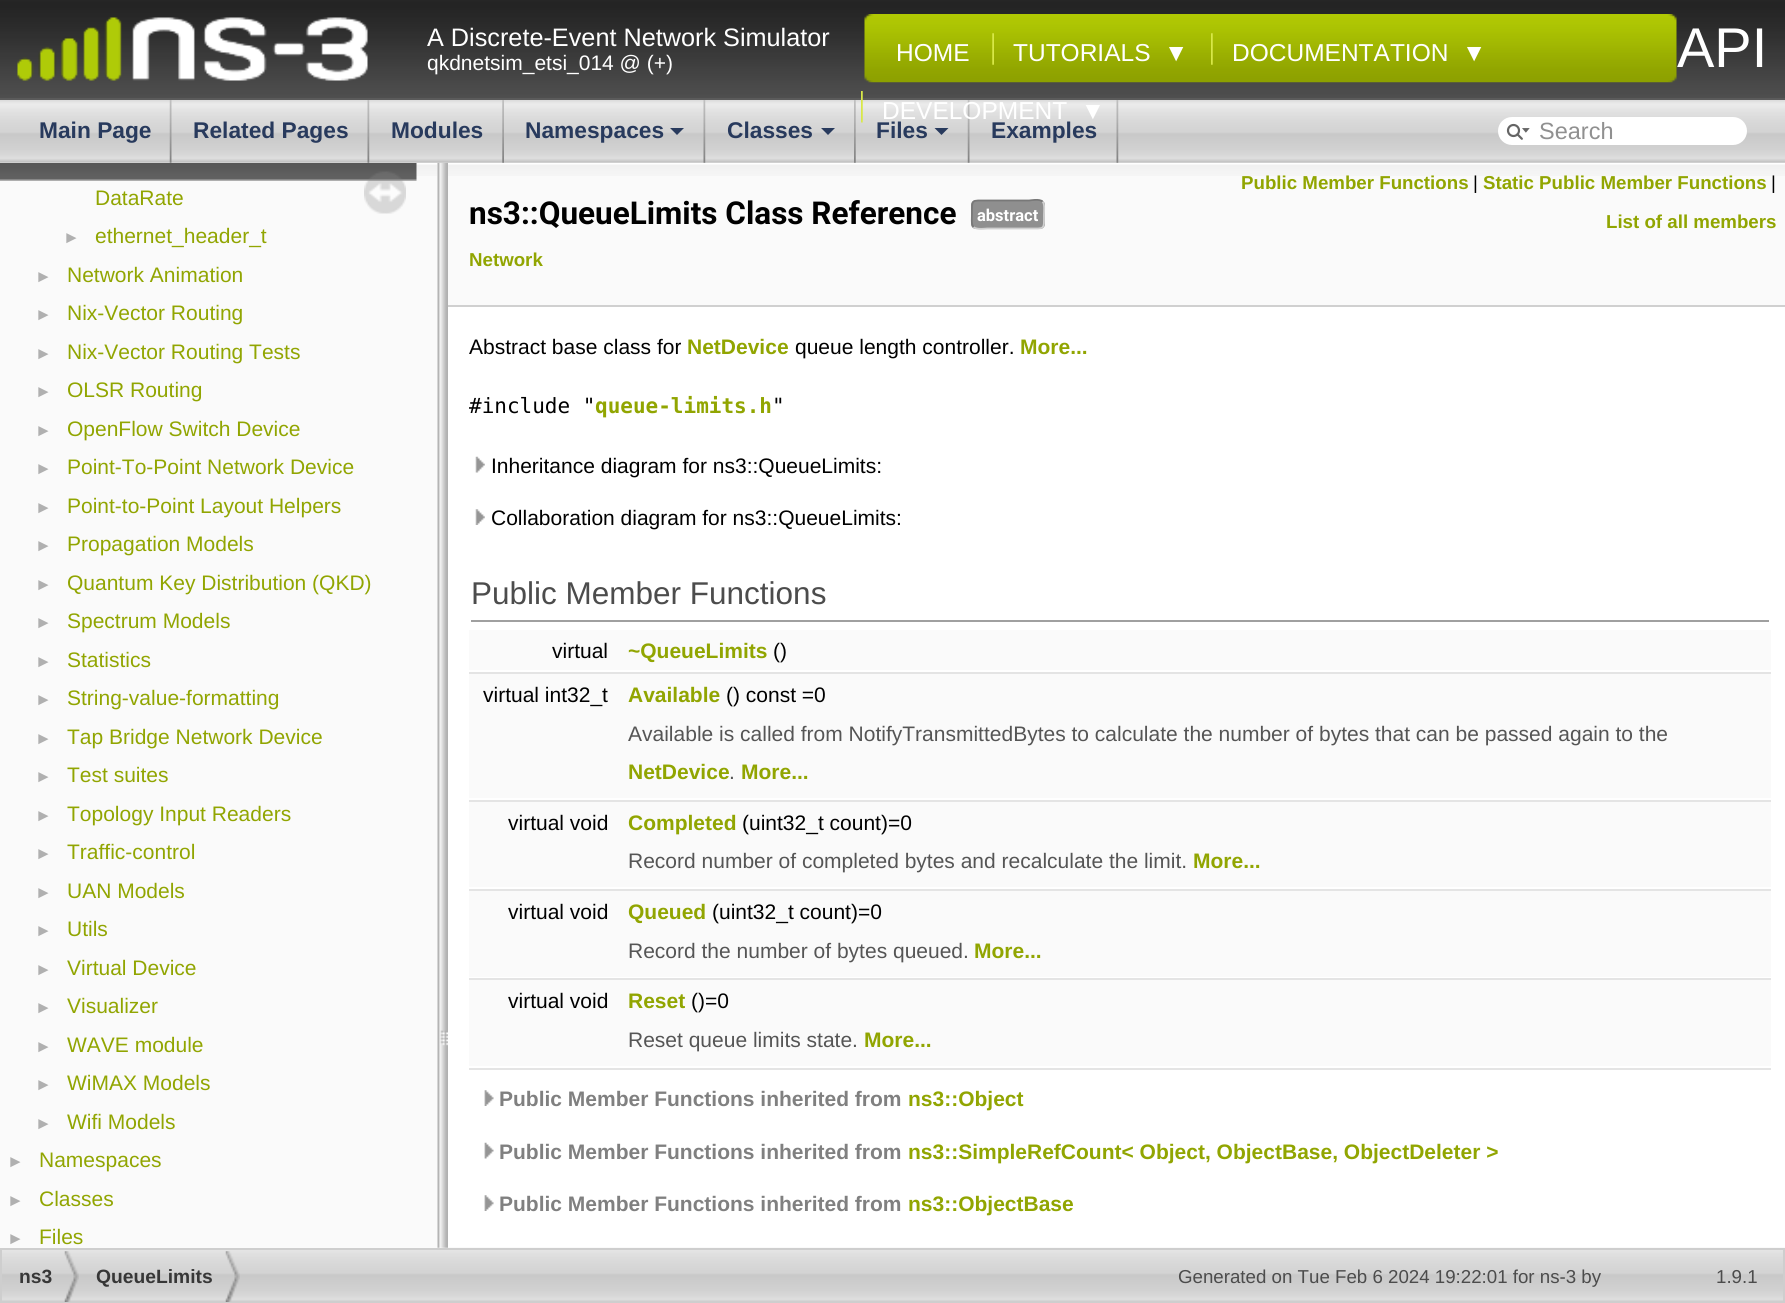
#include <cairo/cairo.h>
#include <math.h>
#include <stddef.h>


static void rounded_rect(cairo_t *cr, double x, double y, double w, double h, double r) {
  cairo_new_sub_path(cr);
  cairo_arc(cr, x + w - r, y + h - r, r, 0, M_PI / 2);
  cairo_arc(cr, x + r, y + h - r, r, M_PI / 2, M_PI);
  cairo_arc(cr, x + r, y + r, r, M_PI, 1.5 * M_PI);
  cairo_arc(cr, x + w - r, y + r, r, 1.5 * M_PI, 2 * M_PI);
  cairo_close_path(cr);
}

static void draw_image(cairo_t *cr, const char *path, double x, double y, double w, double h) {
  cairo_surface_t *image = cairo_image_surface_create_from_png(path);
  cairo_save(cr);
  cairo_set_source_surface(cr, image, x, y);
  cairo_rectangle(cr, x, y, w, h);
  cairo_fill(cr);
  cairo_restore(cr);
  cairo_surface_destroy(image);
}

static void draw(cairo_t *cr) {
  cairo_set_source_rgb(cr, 1, 1, 1);
  cairo_paint(cr);
  draw_image(cr, "images/1.png", 0, 0, 1785, 98);
  cairo_set_source_rgb(cr, 91 / 255.0, 91 / 255.0, 91 / 255.0);
  cairo_rectangle(cr, 0, 98, 1785, 2);
  cairo_fill(cr);
  draw_image(cr, "images/2.png", 17, 17, 351, 64);
  draw_image(cr, "images/3.png", 864, 14, 813, 69);
  draw_image(cr, "images/4.png", 992, 33, 2, 32);
  draw_image(cr, "images/5.png", 1211, 33, 2, 32);
  draw_image(cr, "images/22.png", 2, 1247, 1783, 55);
  cairo_set_source_rgb(cr, 250 / 255.0, 250 / 255.0, 250 / 255.0);
  cairo_rectangle(cr, 0, 163, 438, 1085);
  cairo_fill(cr);
  draw_image(cr, "images/13.png", 416, 163, 22, 13);
  draw_image(cr, "images/16.png", 437, 162, 11, 1086);
  draw_image(cr, "images/7.png", 0, 100, 1785, 63);
  draw_image(cr, "images/6.png", 861, 91, 2, 32);
  draw_image(cr, "images/8.png", 169, 100, 3, 63);
  draw_image(cr, "images/9.png", 367, 100, 3, 63);
  draw_image(cr, "images/10.png", 502, 100, 2, 63);
  draw_image(cr, "images/9.png", 703, 100, 3, 63);
  cairo_set_source_rgb(cr, 40 / 255.0, 58 / 255.0, 93 / 255.0);
  cairo_new_path(cr);
  cairo_move_to(cr, 670, 128);
  cairo_line_to(cr, 684, 128);
  cairo_line_to(cr, 677, 135);
  cairo_close_path(cr);
  cairo_fill(cr);
  draw_image(cr, "images/11.png", 854, 100, 2, 63);
  cairo_new_path(cr);
  cairo_move_to(cr, 821, 128);
  cairo_line_to(cr, 835, 128);
  cairo_line_to(cr, 828, 135);
  cairo_close_path(cr);
  cairo_fill(cr);
  draw_image(cr, "images/8.png", 967, 100, 3, 63);
  cairo_new_path(cr);
  cairo_move_to(cr, 934.5, 128);
  cairo_line_to(cr, 948.5, 128);
  cairo_line_to(cr, 941.5, 135);
  cairo_close_path(cr);
  cairo_fill(cr);
  draw_image(cr, "images/9.png", 1116, 100, 3, 63);
  cairo_set_source_rgb(cr, 1, 1, 1);
  rounded_rect(cr, 1498, 117, 249, 28, 14);
  cairo_fill(cr);
  draw_image(cr, "images/12.png", 1506, 123, 24, 17);
  draw_image(cr, "images/14.png", 0, 163, 417, 18);
  draw_image(cr, "images/15.png", 364, 171, 42, 43);
  cairo_set_source_rgb(cr, 250 / 255.0, 250 / 255.0, 250 / 255.0);
  cairo_rectangle(cr, 448, 176, 1337, 129);
  cairo_fill(cr);
  draw_image(cr, "images/17.png", 448, 163, 1337, 13);
  cairo_set_source_rgb(cr, 208 / 255.0, 208 / 255.0, 208 / 255.0);
  cairo_rectangle(cr, 448, 305, 1337, 2);
  cairo_fill(cr);
  cairo_set_source_rgb(cr, 143 / 255.0, 143 / 255.0, 143 / 255.0);
  rounded_rect(cr, 971, 200, 74, 29, 5);
  cairo_fill(cr);
  cairo_new_path(cr);
  cairo_move_to(cr, 1042.5, 201.5);
  cairo_curve_to(cr, 1045, 204, 1044, 211.5, 1044, 214.5);
  cairo_curve_to(cr, 1044, 230, 1045, 228.5, 1029, 228.5);
  cairo_line_to(cr, 987, 228.5);
  cairo_curve_to(cr, 986, 228.5, 976.5, 230, 973.5, 227);
  cairo_set_source_rgb(cr, 208 / 255.0, 208 / 255.0, 208 / 255.0);
  cairo_set_line_width(cr, 1.8);
  cairo_stroke(cr);
  cairo_new_path(cr);
  cairo_move_to(cr, 973.5, 227);
  cairo_curve_to(cr, 971, 224.5, 972, 217.5, 972, 214.5);
  cairo_curve_to(cr, 972, 199, 971, 200.5, 987, 200.5);
  cairo_line_to(cr, 1029, 200.5);
  cairo_curve_to(cr, 1030, 200.5, 1039.5, 198.5, 1042.5, 201.5);
  cairo_set_source_rgb(cr, 120 / 255.0, 120 / 255.0, 120 / 255.0);
  cairo_stroke(cr);
  draw_image(cr, "images/18.png", 475, 456, 10, 17);
  draw_image(cr, "images/19.png", 475, 509, 10, 16);
  cairo_set_source_rgb(cr, 160 / 255.0, 160 / 255.0, 160 / 255.0);
  cairo_rectangle(cr, 471, 620, 1298, 2);
  cairo_fill(cr);
  cairo_set_source_rgb(cr, 250 / 255.0, 250 / 255.0, 250 / 255.0);
  cairo_rectangle(cr, 469, 630, 1302, 40);
  cairo_fill(cr);
  cairo_set_source_rgb(cr, 228 / 255.0, 228 / 255.0, 228 / 255.0);
  cairo_rectangle(cr, 469, 672, 1302, 2);
  cairo_fill(cr);
  cairo_set_source_rgb(cr, 250 / 255.0, 250 / 255.0, 250 / 255.0);
  cairo_rectangle(cr, 469, 674, 1302, 40);
  cairo_fill(cr);
  cairo_rectangle(cr, 469, 714, 1302, 84);
  cairo_fill(cr);
  cairo_set_source_rgb(cr, 228 / 255.0, 228 / 255.0, 228 / 255.0);
  cairo_rectangle(cr, 469, 800, 1302, 2);
  cairo_fill(cr);
  cairo_set_source_rgb(cr, 250 / 255.0, 250 / 255.0, 250 / 255.0);
  cairo_rectangle(cr, 469, 802, 1302, 40);
  cairo_fill(cr);
  cairo_rectangle(cr, 469, 842, 1302, 45);
  cairo_fill(cr);
  cairo_set_source_rgb(cr, 228 / 255.0, 228 / 255.0, 228 / 255.0);
  cairo_rectangle(cr, 469, 889, 1302, 2);
  cairo_fill(cr);
  cairo_set_source_rgb(cr, 250 / 255.0, 250 / 255.0, 250 / 255.0);
  cairo_rectangle(cr, 469, 891, 1302, 40);
  cairo_fill(cr);
  cairo_rectangle(cr, 469, 931, 1302, 46);
  cairo_fill(cr);
  cairo_set_source_rgb(cr, 228 / 255.0, 228 / 255.0, 228 / 255.0);
  cairo_rectangle(cr, 469, 978, 1302, 2);
  cairo_fill(cr);
  cairo_set_source_rgb(cr, 250 / 255.0, 250 / 255.0, 250 / 255.0);
  cairo_rectangle(cr, 469, 980, 1302, 40);
  cairo_fill(cr);
  cairo_rectangle(cr, 469, 1020, 1302, 46);
  cairo_fill(cr);
  cairo_set_source_rgb(cr, 228 / 255.0, 228 / 255.0, 228 / 255.0);
  cairo_rectangle(cr, 469, 1068, 1302, 2);
  cairo_fill(cr);
  draw_image(cr, "images/20.png", 484, 1090, 10, 16);
  draw_image(cr, "images/21.png", 484, 1142, 10, 17);
  draw_image(cr, "images/20.png", 484, 1195, 10, 16);
  cairo_rectangle(cr, 1, 1249, 1783, 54);
  cairo_set_source_rgb(cr, 206 / 255.0, 206 / 255.0, 206 / 255.0);
  cairo_set_line_width(cr, 2);
  cairo_stroke(cr);
  draw_image(cr, "images/23.png", 64, 1251, 15, 51);
  draw_image(cr, "images/23.png", 225, 1251, 15, 51);
  cairo_select_font_face(cr, "Liberation Sans", CAIRO_FONT_SLANT_NORMAL, CAIRO_FONT_WEIGHT_NORMAL);
  cairo_set_font_size(cr, 25.25);
  cairo_set_source_rgb(cr, 1, 1, 1);
  cairo_move_to(cr, 427, 46);
  cairo_show_text(cr, "A Discrete-Event Network Simulator");
  cairo_set_font_size(cr, 21);
  cairo_move_to(cr, 427, 70);
  cairo_show_text(cr, "qkdnetsim_etsi_014 @ (+)");
  cairo_set_font_size(cr, 24.5);
  cairo_move_to(cr, 896, 61);
  cairo_show_text(cr, "HOME");
  cairo_move_to(cr, 1013, 61);
  cairo_show_text(cr, "TUTORIALS  ▼");
  cairo_move_to(cr, 1232, 61);
  cairo_show_text(cr, "DOCUMENTATION  ▼");
  cairo_move_to(cr, 882, 119);
  cairo_show_text(cr, "DEVELOPMENT  ▼");
  cairo_set_font_size(cr, 56);
  cairo_move_to(cr, 1677, 67);
  cairo_show_text(cr, "API");
  cairo_select_font_face(cr, "Liberation Sans", CAIRO_FONT_SLANT_NORMAL, CAIRO_FONT_WEIGHT_BOLD);
  cairo_set_font_size(cr, 22.75);
  cairo_set_source_rgb(cr, 40 / 255.0, 58 / 255.0, 93 / 255.0);
  cairo_move_to(cr, 39, 138);
  cairo_show_text(cr, "Main Page");
  cairo_move_to(cr, 193, 138);
  cairo_show_text(cr, "Related Pages");
  cairo_move_to(cr, 391, 138);
  cairo_show_text(cr, "Modules");
  cairo_move_to(cr, 525, 138);
  cairo_show_text(cr, "Namespaces");
  cairo_move_to(cr, 727, 138);
  cairo_show_text(cr, "Classes");
  cairo_move_to(cr, 876, 138);
  cairo_show_text(cr, "Files");
  cairo_move_to(cr, 991, 138);
  cairo_show_text(cr, "Examples");
  cairo_select_font_face(cr, "Liberation Sans", CAIRO_FONT_SLANT_NORMAL, CAIRO_FONT_WEIGHT_NORMAL);
  cairo_set_font_size(cr, 23.5);
  cairo_set_source_rgb(cr, 144 / 255.0, 144 / 255.0, 144 / 255.0);
  cairo_move_to(cr, 1539, 139);
  cairo_show_text(cr, "Search");
  cairo_set_font_size(cr, 21);
  cairo_set_source_rgb(cr, 145 / 255.0, 165 / 255.0, 1 / 255.0);
  cairo_move_to(cr, 95, 205);
  cairo_show_text(cr, "DataRate");
  cairo_set_font_size(cr, 17);
  cairo_set_source_rgb(cr, 176 / 255.0, 176 / 255.0, 176 / 255.0);
  cairo_move_to(cr, 63, 243);
  cairo_show_text(cr, "►");
  cairo_set_font_size(cr, 21);
  cairo_set_source_rgb(cr, 145 / 255.0, 165 / 255.0, 1 / 255.0);
  cairo_move_to(cr, 95, 243);
  cairo_show_text(cr, "ethernet_header_t");
  cairo_set_font_size(cr, 17);
  cairo_set_source_rgb(cr, 176 / 255.0, 176 / 255.0, 176 / 255.0);
  cairo_move_to(cr, 35, 282);
  cairo_show_text(cr, "►");
  cairo_set_font_size(cr, 21);
  cairo_set_source_rgb(cr, 145 / 255.0, 165 / 255.0, 1 / 255.0);
  cairo_move_to(cr, 67, 282);
  cairo_show_text(cr, "Network Animation");
  cairo_set_font_size(cr, 17);
  cairo_set_source_rgb(cr, 176 / 255.0, 176 / 255.0, 176 / 255.0);
  cairo_move_to(cr, 35, 320);
  cairo_show_text(cr, "►");
  cairo_set_font_size(cr, 21);
  cairo_set_source_rgb(cr, 145 / 255.0, 165 / 255.0, 1 / 255.0);
  cairo_move_to(cr, 67, 320);
  cairo_show_text(cr, "Nix-Vector Routing");
  cairo_set_font_size(cr, 17);
  cairo_set_source_rgb(cr, 176 / 255.0, 176 / 255.0, 176 / 255.0);
  cairo_move_to(cr, 35, 359);
  cairo_show_text(cr, "►");
  cairo_set_font_size(cr, 21);
  cairo_set_source_rgb(cr, 145 / 255.0, 165 / 255.0, 1 / 255.0);
  cairo_move_to(cr, 67, 359);
  cairo_show_text(cr, "Nix-Vector Routing Tests");
  cairo_set_font_size(cr, 17);
  cairo_set_source_rgb(cr, 176 / 255.0, 176 / 255.0, 176 / 255.0);
  cairo_move_to(cr, 35, 397);
  cairo_show_text(cr, "►");
  cairo_set_font_size(cr, 21);
  cairo_set_source_rgb(cr, 145 / 255.0, 165 / 255.0, 1 / 255.0);
  cairo_move_to(cr, 67, 397);
  cairo_show_text(cr, "OLSR Routing");
  cairo_set_font_size(cr, 17);
  cairo_set_source_rgb(cr, 176 / 255.0, 176 / 255.0, 176 / 255.0);
  cairo_move_to(cr, 35, 436);
  cairo_show_text(cr, "►");
  cairo_set_font_size(cr, 21);
  cairo_set_source_rgb(cr, 145 / 255.0, 165 / 255.0, 1 / 255.0);
  cairo_move_to(cr, 67, 436);
  cairo_show_text(cr, "OpenFlow Switch Device");
  cairo_set_font_size(cr, 17);
  cairo_set_source_rgb(cr, 176 / 255.0, 176 / 255.0, 176 / 255.0);
  cairo_move_to(cr, 35, 474);
  cairo_show_text(cr, "►");
  cairo_set_font_size(cr, 21);
  cairo_set_source_rgb(cr, 145 / 255.0, 165 / 255.0, 1 / 255.0);
  cairo_move_to(cr, 67, 474);
  cairo_show_text(cr, "Point-To-Point Network Device");
  cairo_set_font_size(cr, 17);
  cairo_set_source_rgb(cr, 176 / 255.0, 176 / 255.0, 176 / 255.0);
  cairo_move_to(cr, 35, 513);
  cairo_show_text(cr, "►");
  cairo_set_font_size(cr, 21);
  cairo_set_source_rgb(cr, 145 / 255.0, 165 / 255.0, 1 / 255.0);
  cairo_move_to(cr, 67, 513);
  cairo_show_text(cr, "Point-to-Point Layout Helpers");
  cairo_set_font_size(cr, 17);
  cairo_set_source_rgb(cr, 176 / 255.0, 176 / 255.0, 176 / 255.0);
  cairo_move_to(cr, 35, 551);
  cairo_show_text(cr, "►");
  cairo_set_font_size(cr, 21);
  cairo_set_source_rgb(cr, 145 / 255.0, 165 / 255.0, 1 / 255.0);
  cairo_move_to(cr, 67, 551);
  cairo_show_text(cr, "Propagation Models");
  cairo_set_font_size(cr, 17);
  cairo_set_source_rgb(cr, 176 / 255.0, 176 / 255.0, 176 / 255.0);
  cairo_move_to(cr, 35, 590);
  cairo_show_text(cr, "►");
  cairo_set_font_size(cr, 21);
  cairo_set_source_rgb(cr, 145 / 255.0, 165 / 255.0, 1 / 255.0);
  cairo_move_to(cr, 67, 590);
  cairo_show_text(cr, "Quantum Key Distribution (QKD)");
  cairo_set_font_size(cr, 17);
  cairo_set_source_rgb(cr, 176 / 255.0, 176 / 255.0, 176 / 255.0);
  cairo_move_to(cr, 35, 628);
  cairo_show_text(cr, "►");
  cairo_set_font_size(cr, 21);
  cairo_set_source_rgb(cr, 145 / 255.0, 165 / 255.0, 1 / 255.0);
  cairo_move_to(cr, 67, 628);
  cairo_show_text(cr, "Spectrum Models");
  cairo_set_font_size(cr, 17);
  cairo_set_source_rgb(cr, 176 / 255.0, 176 / 255.0, 176 / 255.0);
  cairo_move_to(cr, 35, 667);
  cairo_show_text(cr, "►");
  cairo_set_font_size(cr, 21);
  cairo_set_source_rgb(cr, 145 / 255.0, 165 / 255.0, 1 / 255.0);
  cairo_move_to(cr, 67, 667);
  cairo_show_text(cr, "Statistics");
  cairo_set_font_size(cr, 17);
  cairo_set_source_rgb(cr, 176 / 255.0, 176 / 255.0, 176 / 255.0);
  cairo_move_to(cr, 35, 705);
  cairo_show_text(cr, "►");
  cairo_set_font_size(cr, 21);
  cairo_set_source_rgb(cr, 145 / 255.0, 165 / 255.0, 1 / 255.0);
  cairo_move_to(cr, 67, 705);
  cairo_show_text(cr, "String-value-formatting");
  cairo_set_font_size(cr, 17);
  cairo_set_source_rgb(cr, 176 / 255.0, 176 / 255.0, 176 / 255.0);
  cairo_move_to(cr, 35, 744);
  cairo_show_text(cr, "►");
  cairo_set_font_size(cr, 21);
  cairo_set_source_rgb(cr, 145 / 255.0, 165 / 255.0, 1 / 255.0);
  cairo_move_to(cr, 67, 744);
  cairo_show_text(cr, "Tap Bridge Network Device");
  cairo_set_font_size(cr, 17);
  cairo_set_source_rgb(cr, 176 / 255.0, 176 / 255.0, 176 / 255.0);
  cairo_move_to(cr, 35, 782);
  cairo_show_text(cr, "►");
  cairo_set_font_size(cr, 21);
  cairo_set_source_rgb(cr, 145 / 255.0, 165 / 255.0, 1 / 255.0);
  cairo_move_to(cr, 67, 782);
  cairo_show_text(cr, "Test suites");
  cairo_set_font_size(cr, 17);
  cairo_set_source_rgb(cr, 176 / 255.0, 176 / 255.0, 176 / 255.0);
  cairo_move_to(cr, 35, 821);
  cairo_show_text(cr, "►");
  cairo_set_font_size(cr, 21);
  cairo_set_source_rgb(cr, 145 / 255.0, 165 / 255.0, 1 / 255.0);
  cairo_move_to(cr, 67, 821);
  cairo_show_text(cr, "Topology Input Readers");
  cairo_set_font_size(cr, 17);
  cairo_set_source_rgb(cr, 176 / 255.0, 176 / 255.0, 176 / 255.0);
  cairo_move_to(cr, 35, 859);
  cairo_show_text(cr, "►");
  cairo_set_font_size(cr, 21);
  cairo_set_source_rgb(cr, 145 / 255.0, 165 / 255.0, 1 / 255.0);
  cairo_move_to(cr, 67, 859);
  cairo_show_text(cr, "Traffic-control");
  cairo_set_font_size(cr, 17);
  cairo_set_source_rgb(cr, 176 / 255.0, 176 / 255.0, 176 / 255.0);
  cairo_move_to(cr, 35, 898);
  cairo_show_text(cr, "►");
  cairo_set_font_size(cr, 21);
  cairo_set_source_rgb(cr, 145 / 255.0, 165 / 255.0, 1 / 255.0);
  cairo_move_to(cr, 67, 898);
  cairo_show_text(cr, "UAN Models");
  cairo_set_font_size(cr, 17);
  cairo_set_source_rgb(cr, 176 / 255.0, 176 / 255.0, 176 / 255.0);
  cairo_move_to(cr, 35, 936);
  cairo_show_text(cr, "►");
  cairo_set_font_size(cr, 21);
  cairo_set_source_rgb(cr, 145 / 255.0, 165 / 255.0, 1 / 255.0);
  cairo_move_to(cr, 67, 936);
  cairo_show_text(cr, "Utils");
  cairo_set_font_size(cr, 17);
  cairo_set_source_rgb(cr, 176 / 255.0, 176 / 255.0, 176 / 255.0);
  cairo_move_to(cr, 35, 975);
  cairo_show_text(cr, "►");
  cairo_set_font_size(cr, 21);
  cairo_set_source_rgb(cr, 145 / 255.0, 165 / 255.0, 1 / 255.0);
  cairo_move_to(cr, 67, 975);
  cairo_show_text(cr, "Virtual Device");
  cairo_set_font_size(cr, 17);
  cairo_set_source_rgb(cr, 176 / 255.0, 176 / 255.0, 176 / 255.0);
  cairo_move_to(cr, 35, 1013);
  cairo_show_text(cr, "►");
  cairo_set_font_size(cr, 21);
  cairo_set_source_rgb(cr, 145 / 255.0, 165 / 255.0, 1 / 255.0);
  cairo_move_to(cr, 67, 1013);
  cairo_show_text(cr, "Visualizer");
  cairo_set_font_size(cr, 17);
  cairo_set_source_rgb(cr, 176 / 255.0, 176 / 255.0, 176 / 255.0);
  cairo_move_to(cr, 35, 1052);
  cairo_show_text(cr, "►");
  cairo_set_font_size(cr, 21);
  cairo_set_source_rgb(cr, 145 / 255.0, 165 / 255.0, 1 / 255.0);
  cairo_move_to(cr, 67, 1052);
  cairo_show_text(cr, "WAVE module");
  cairo_set_font_size(cr, 17);
  cairo_set_source_rgb(cr, 176 / 255.0, 176 / 255.0, 176 / 255.0);
  cairo_move_to(cr, 35, 1090);
  cairo_show_text(cr, "►");
  cairo_set_font_size(cr, 21);
  cairo_set_source_rgb(cr, 145 / 255.0, 165 / 255.0, 1 / 255.0);
  cairo_move_to(cr, 67, 1090);
  cairo_show_text(cr, "WiMAX Models");
  cairo_set_font_size(cr, 17);
  cairo_set_source_rgb(cr, 176 / 255.0, 176 / 255.0, 176 / 255.0);
  cairo_move_to(cr, 35, 1129);
  cairo_show_text(cr, "►");
  cairo_set_font_size(cr, 21);
  cairo_set_source_rgb(cr, 145 / 255.0, 165 / 255.0, 1 / 255.0);
  cairo_move_to(cr, 67, 1129);
  cairo_show_text(cr, "Wifi Models");
  cairo_set_font_size(cr, 17);
  cairo_set_source_rgb(cr, 176 / 255.0, 176 / 255.0, 176 / 255.0);
  cairo_move_to(cr, 7, 1167);
  cairo_show_text(cr, "►");
  cairo_set_font_size(cr, 21);
  cairo_set_source_rgb(cr, 145 / 255.0, 165 / 255.0, 1 / 255.0);
  cairo_move_to(cr, 39, 1167);
  cairo_show_text(cr, "Namespaces");
  cairo_set_font_size(cr, 17);
  cairo_set_source_rgb(cr, 176 / 255.0, 176 / 255.0, 176 / 255.0);
  cairo_move_to(cr, 7, 1206);
  cairo_show_text(cr, "►");
  cairo_set_font_size(cr, 21);
  cairo_set_source_rgb(cr, 145 / 255.0, 165 / 255.0, 1 / 255.0);
  cairo_move_to(cr, 39, 1206);
  cairo_show_text(cr, "Classes");
  cairo_set_font_size(cr, 17);
  cairo_set_source_rgb(cr, 176 / 255.0, 176 / 255.0, 176 / 255.0);
  cairo_move_to(cr, 7, 1244);
  cairo_show_text(cr, "►");
  cairo_set_font_size(cr, 21);
  cairo_set_source_rgb(cr, 145 / 255.0, 165 / 255.0, 1 / 255.0);
  cairo_move_to(cr, 39, 1244);
  cairo_show_text(cr, "Files");
  cairo_select_font_face(cr, "Roboto", CAIRO_FONT_SLANT_NORMAL, CAIRO_FONT_WEIGHT_BOLD);
  cairo_set_font_size(cr, 31.5);
  cairo_set_source_rgb(cr, 0, 0, 0);
  cairo_move_to(cr, 469, 224);
  cairo_show_text(cr, "ns3::QueueLimits Class Reference");
  cairo_set_font_size(cr, 16.5);
  cairo_set_source_rgb(cr, 1, 1, 1);
  cairo_move_to(cr, 977, 221);
  cairo_show_text(cr, "abstract");
  cairo_select_font_face(cr, "Liberation Sans", CAIRO_FONT_SLANT_NORMAL, CAIRO_FONT_WEIGHT_BOLD);
  cairo_set_font_size(cr, 18.7);
  cairo_set_source_rgb(cr, 145 / 255.0, 165 / 255.0, 1 / 255.0);
  cairo_move_to(cr, 469, 266);
  cairo_show_text(cr, "Network");
  cairo_move_to(cr, 1241, 189);
  cairo_show_text(cr, "Public Member Functions");
  cairo_select_font_face(cr, "Liberation Sans", CAIRO_FONT_SLANT_NORMAL, CAIRO_FONT_WEIGHT_NORMAL);
  cairo_set_source_rgb(cr, 0, 0, 0);
  cairo_move_to(cr, 1473, 189);
  cairo_show_text(cr, "|");
  cairo_select_font_face(cr, "Liberation Sans", CAIRO_FONT_SLANT_NORMAL, CAIRO_FONT_WEIGHT_BOLD);
  cairo_set_source_rgb(cr, 145 / 255.0, 165 / 255.0, 1 / 255.0);
  cairo_move_to(cr, 1483, 189);
  cairo_show_text(cr, "Static Public Member Functions");
  cairo_select_font_face(cr, "Liberation Sans", CAIRO_FONT_SLANT_NORMAL, CAIRO_FONT_WEIGHT_NORMAL);
  cairo_set_source_rgb(cr, 0, 0, 0);
  cairo_move_to(cr, 1771, 189);
  cairo_show_text(cr, "|");
  cairo_select_font_face(cr, "Liberation Sans", CAIRO_FONT_SLANT_NORMAL, CAIRO_FONT_WEIGHT_BOLD);
  cairo_set_source_rgb(cr, 145 / 255.0, 165 / 255.0, 1 / 255.0);
  cairo_move_to(cr, 1606, 228);
  cairo_show_text(cr, "List of all members");
  cairo_select_font_face(cr, "Liberation Sans", CAIRO_FONT_SLANT_NORMAL, CAIRO_FONT_WEIGHT_NORMAL);
  cairo_set_font_size(cr, 21);
  cairo_set_source_rgb(cr, 0, 0, 0);
  cairo_move_to(cr, 469, 354);
  cairo_show_text(cr, "Abstract base class for");
  cairo_select_font_face(cr, "Liberation Sans", CAIRO_FONT_SLANT_NORMAL, CAIRO_FONT_WEIGHT_BOLD);
  cairo_set_source_rgb(cr, 145 / 255.0, 165 / 255.0, 1 / 255.0);
  cairo_move_to(cr, 687, 354);
  cairo_show_text(cr, "NetDevice");
  cairo_select_font_face(cr, "Liberation Sans", CAIRO_FONT_SLANT_NORMAL, CAIRO_FONT_WEIGHT_NORMAL);
  cairo_set_source_rgb(cr, 0, 0, 0);
  cairo_move_to(cr, 795, 354);
  cairo_show_text(cr, "queue length controller.");
  cairo_select_font_face(cr, "Liberation Sans", CAIRO_FONT_SLANT_NORMAL, CAIRO_FONT_WEIGHT_BOLD);
  cairo_set_source_rgb(cr, 145 / 255.0, 165 / 255.0, 1 / 255.0);
  cairo_move_to(cr, 1020, 354);
  cairo_show_text(cr, "More...");
  cairo_select_font_face(cr, "DejaVu Sans Mono", CAIRO_FONT_SLANT_NORMAL, CAIRO_FONT_WEIGHT_NORMAL);
  cairo_set_source_rgb(cr, 0, 0, 0);
  cairo_move_to(cr, 469, 413);
  cairo_show_text(cr, "#include \"");
  cairo_select_font_face(cr, "DejaVu Sans Mono", CAIRO_FONT_SLANT_NORMAL, CAIRO_FONT_WEIGHT_BOLD);
  cairo_set_source_rgb(cr, 145 / 255.0, 165 / 255.0, 1 / 255.0);
  cairo_move_to(cr, 595, 413);
  cairo_show_text(cr, "queue-limits.h");
  cairo_select_font_face(cr, "DejaVu Sans Mono", CAIRO_FONT_SLANT_NORMAL, CAIRO_FONT_WEIGHT_NORMAL);
  cairo_set_source_rgb(cr, 0, 0, 0);
  cairo_move_to(cr, 772, 413);
  cairo_show_text(cr, "\"");
  cairo_select_font_face(cr, "Liberation Sans", CAIRO_FONT_SLANT_NORMAL, CAIRO_FONT_WEIGHT_NORMAL);
  cairo_move_to(cr, 491, 473);
  cairo_show_text(cr, "Inheritance diagram for ns3::QueueLimits:");
  cairo_move_to(cr, 491, 525);
  cairo_show_text(cr, "Collaboration diagram for ns3::QueueLimits:");
  cairo_set_font_size(cr, 31.5);
  cairo_set_source_rgb(cr, 76 / 255.0, 76 / 255.0, 76 / 255.0);
  cairo_move_to(cr, 471, 604);
  cairo_show_text(cr, "Public Member Functions");
  cairo_set_font_size(cr, 21);
  cairo_set_source_rgb(cr, 0, 0, 0);
  cairo_move_to(cr, 552, 658);
  cairo_show_text(cr, "virtual");
  cairo_select_font_face(cr, "Liberation Sans", CAIRO_FONT_SLANT_NORMAL, CAIRO_FONT_WEIGHT_BOLD);
  cairo_set_source_rgb(cr, 145 / 255.0, 165 / 255.0, 1 / 255.0);
  cairo_move_to(cr, 628, 658);
  cairo_show_text(cr, "~QueueLimits");
  cairo_select_font_face(cr, "Liberation Sans", CAIRO_FONT_SLANT_NORMAL, CAIRO_FONT_WEIGHT_NORMAL);
  cairo_set_source_rgb(cr, 0, 0, 0);
  cairo_move_to(cr, 773, 658);
  cairo_show_text(cr, "()");
  cairo_move_to(cr, 483, 702);
  cairo_show_text(cr, "virtual int32_t");
  cairo_select_font_face(cr, "Liberation Sans", CAIRO_FONT_SLANT_NORMAL, CAIRO_FONT_WEIGHT_BOLD);
  cairo_set_source_rgb(cr, 145 / 255.0, 165 / 255.0, 1 / 255.0);
  cairo_move_to(cr, 628, 702);
  cairo_show_text(cr, "Available");
  cairo_select_font_face(cr, "Liberation Sans", CAIRO_FONT_SLANT_NORMAL, CAIRO_FONT_WEIGHT_NORMAL);
  cairo_set_source_rgb(cr, 0, 0, 0);
  cairo_move_to(cr, 726, 702);
  cairo_show_text(cr, "() const =0");
  cairo_set_source_rgb(cr, 85 / 255.0, 85 / 255.0, 85 / 255.0);
  cairo_move_to(cr, 628, 741);
  cairo_show_text(cr, "Available is called from NotifyTransmittedBytes to calculate the number of bytes that can be passed again to the");
  cairo_select_font_face(cr, "Liberation Sans", CAIRO_FONT_SLANT_NORMAL, CAIRO_FONT_WEIGHT_BOLD);
  cairo_set_source_rgb(cr, 145 / 255.0, 165 / 255.0, 1 / 255.0);
  cairo_move_to(cr, 628, 779);
  cairo_show_text(cr, "NetDevice");
  cairo_select_font_face(cr, "Liberation Sans", CAIRO_FONT_SLANT_NORMAL, CAIRO_FONT_WEIGHT_NORMAL);
  cairo_set_source_rgb(cr, 85 / 255.0, 85 / 255.0, 85 / 255.0);
  cairo_move_to(cr, 729, 779);
  cairo_show_text(cr, ".");
  cairo_select_font_face(cr, "Liberation Sans", CAIRO_FONT_SLANT_NORMAL, CAIRO_FONT_WEIGHT_BOLD);
  cairo_set_source_rgb(cr, 145 / 255.0, 165 / 255.0, 1 / 255.0);
  cairo_move_to(cr, 741, 779);
  cairo_show_text(cr, "More...");
  cairo_select_font_face(cr, "Liberation Sans", CAIRO_FONT_SLANT_NORMAL, CAIRO_FONT_WEIGHT_NORMAL);
  cairo_set_source_rgb(cr, 0, 0, 0);
  cairo_move_to(cr, 508, 830);
  cairo_show_text(cr, "virtual void");
  cairo_select_font_face(cr, "Liberation Sans", CAIRO_FONT_SLANT_NORMAL, CAIRO_FONT_WEIGHT_BOLD);
  cairo_set_source_rgb(cr, 145 / 255.0, 165 / 255.0, 1 / 255.0);
  cairo_move_to(cr, 628, 830);
  cairo_show_text(cr, "Completed");
  cairo_select_font_face(cr, "Liberation Sans", CAIRO_FONT_SLANT_NORMAL, CAIRO_FONT_WEIGHT_NORMAL);
  cairo_set_source_rgb(cr, 0, 0, 0);
  cairo_move_to(cr, 742, 830);
  cairo_show_text(cr, "(uint32_t count)=0");
  cairo_set_source_rgb(cr, 85 / 255.0, 85 / 255.0, 85 / 255.0);
  cairo_move_to(cr, 628, 868);
  cairo_show_text(cr, "Record number of completed bytes and recalculate the limit.");
  cairo_select_font_face(cr, "Liberation Sans", CAIRO_FONT_SLANT_NORMAL, CAIRO_FONT_WEIGHT_BOLD);
  cairo_set_source_rgb(cr, 145 / 255.0, 165 / 255.0, 1 / 255.0);
  cairo_move_to(cr, 1193, 868);
  cairo_show_text(cr, "More...");
  cairo_select_font_face(cr, "Liberation Sans", CAIRO_FONT_SLANT_NORMAL, CAIRO_FONT_WEIGHT_NORMAL);
  cairo_set_source_rgb(cr, 0, 0, 0);
  cairo_move_to(cr, 508, 919);
  cairo_show_text(cr, "virtual void");
  cairo_select_font_face(cr, "Liberation Sans", CAIRO_FONT_SLANT_NORMAL, CAIRO_FONT_WEIGHT_BOLD);
  cairo_set_source_rgb(cr, 145 / 255.0, 165 / 255.0, 1 / 255.0);
  cairo_move_to(cr, 628, 919);
  cairo_show_text(cr, "Queued");
  cairo_select_font_face(cr, "Liberation Sans", CAIRO_FONT_SLANT_NORMAL, CAIRO_FONT_WEIGHT_NORMAL);
  cairo_set_source_rgb(cr, 0, 0, 0);
  cairo_move_to(cr, 712, 919);
  cairo_show_text(cr, "(uint32_t count)=0");
  cairo_set_source_rgb(cr, 85 / 255.0, 85 / 255.0, 85 / 255.0);
  cairo_move_to(cr, 628, 958);
  cairo_show_text(cr, "Record the number of bytes queued.");
  cairo_select_font_face(cr, "Liberation Sans", CAIRO_FONT_SLANT_NORMAL, CAIRO_FONT_WEIGHT_BOLD);
  cairo_set_source_rgb(cr, 145 / 255.0, 165 / 255.0, 1 / 255.0);
  cairo_move_to(cr, 974, 958);
  cairo_show_text(cr, "More...");
  cairo_select_font_face(cr, "Liberation Sans", CAIRO_FONT_SLANT_NORMAL, CAIRO_FONT_WEIGHT_NORMAL);
  cairo_set_source_rgb(cr, 0, 0, 0);
  cairo_move_to(cr, 508, 1008);
  cairo_show_text(cr, "virtual void");
  cairo_select_font_face(cr, "Liberation Sans", CAIRO_FONT_SLANT_NORMAL, CAIRO_FONT_WEIGHT_BOLD);
  cairo_set_source_rgb(cr, 145 / 255.0, 165 / 255.0, 1 / 255.0);
  cairo_move_to(cr, 628, 1008);
  cairo_show_text(cr, "Reset");
  cairo_select_font_face(cr, "Liberation Sans", CAIRO_FONT_SLANT_NORMAL, CAIRO_FONT_WEIGHT_NORMAL);
  cairo_set_source_rgb(cr, 0, 0, 0);
  cairo_move_to(cr, 691, 1008);
  cairo_show_text(cr, "()=0");
  cairo_set_source_rgb(cr, 85 / 255.0, 85 / 255.0, 85 / 255.0);
  cairo_move_to(cr, 628, 1047);
  cairo_show_text(cr, "Reset queue limits state.");
  cairo_select_font_face(cr, "Liberation Sans", CAIRO_FONT_SLANT_NORMAL, CAIRO_FONT_WEIGHT_BOLD);
  cairo_set_source_rgb(cr, 145 / 255.0, 165 / 255.0, 1 / 255.0);
  cairo_move_to(cr, 864, 1047);
  cairo_show_text(cr, "More...");
  cairo_set_source_rgb(cr, 128 / 255.0, 128 / 255.0, 128 / 255.0);
  cairo_move_to(cr, 499, 1106);
  cairo_show_text(cr, "Public Member Functions inherited from");
  cairo_set_source_rgb(cr, 145 / 255.0, 165 / 255.0, 1 / 255.0);
  cairo_move_to(cr, 908, 1106);
  cairo_show_text(cr, "ns3::Object");
  cairo_set_source_rgb(cr, 128 / 255.0, 128 / 255.0, 128 / 255.0);
  cairo_move_to(cr, 499, 1159);
  cairo_show_text(cr, "Public Member Functions inherited from");
  cairo_set_source_rgb(cr, 145 / 255.0, 165 / 255.0, 1 / 255.0);
  cairo_move_to(cr, 908, 1159);
  cairo_show_text(cr, "ns3::SimpleRefCount< Object, ObjectBase, ObjectDeleter >");
  cairo_set_source_rgb(cr, 128 / 255.0, 128 / 255.0, 128 / 255.0);
  cairo_move_to(cr, 499, 1211);
  cairo_show_text(cr, "Public Member Functions inherited from");
  cairo_set_source_rgb(cr, 145 / 255.0, 165 / 255.0, 1 / 255.0);
  cairo_move_to(cr, 908, 1211);
  cairo_show_text(cr, "ns3::ObjectBase");
  cairo_set_font_size(cr, 19.25);
  cairo_set_source_rgb(cr, 55 / 255.0, 55 / 255.0, 55 / 255.0);
  cairo_move_to(cr, 19, 1283);
  cairo_show_text(cr, "ns3");
  cairo_move_to(cr, 96, 1283);
  cairo_show_text(cr, "QueueLimits");
  cairo_select_font_face(cr, "Liberation Sans", CAIRO_FONT_SLANT_NORMAL, CAIRO_FONT_WEIGHT_NORMAL);
  cairo_set_font_size(cr, 18.7);
  cairo_set_source_rgb(cr, 76 / 255.0, 76 / 255.0, 76 / 255.0);
  cairo_move_to(cr, 1178, 1283);
  cairo_show_text(cr, "Generated on Tue Feb 6 2024 19:22:01 for ns-3 by");
  cairo_move_to(cr, 1716, 1283);
  cairo_show_text(cr, "1.9.1");
}

int main(void) {
  cairo_surface_t *surface = cairo_image_surface_create(CAIRO_FORMAT_RGB24, 1785, 1303);
  cairo_t *cr = cairo_create(surface);
  cairo_font_options_t *options = cairo_font_options_create();
  cairo_font_options_set_hint_metrics(options, CAIRO_HINT_METRICS_OFF);
  cairo_font_options_set_hint_style(options, CAIRO_HINT_STYLE_NONE);
  cairo_set_font_options(cr, options);
  cairo_set_miter_limit(cr, 4);
  draw(cr);
  cairo_surface_write_to_png(surface, "out.png");
  cairo_font_options_destroy(options);
  cairo_destroy(cr);
  cairo_surface_destroy(surface);
  return 0;
}
